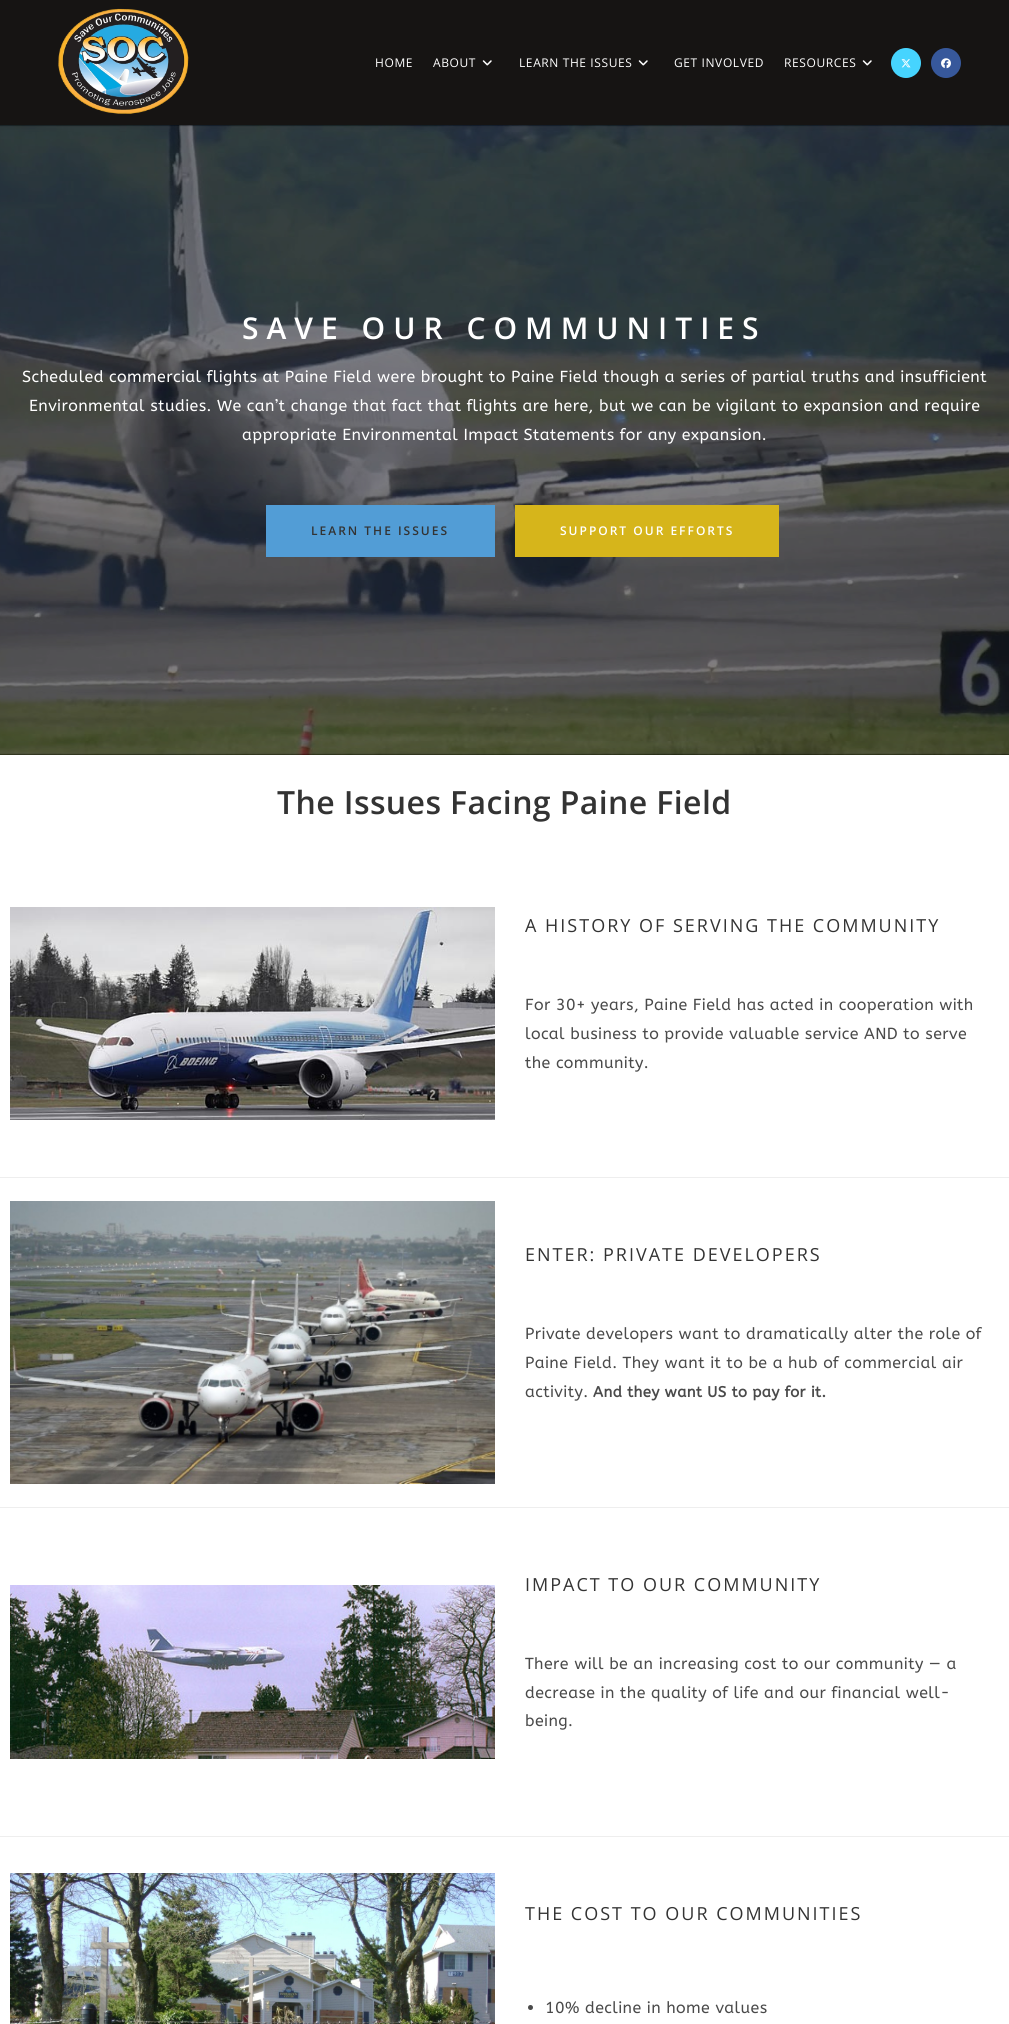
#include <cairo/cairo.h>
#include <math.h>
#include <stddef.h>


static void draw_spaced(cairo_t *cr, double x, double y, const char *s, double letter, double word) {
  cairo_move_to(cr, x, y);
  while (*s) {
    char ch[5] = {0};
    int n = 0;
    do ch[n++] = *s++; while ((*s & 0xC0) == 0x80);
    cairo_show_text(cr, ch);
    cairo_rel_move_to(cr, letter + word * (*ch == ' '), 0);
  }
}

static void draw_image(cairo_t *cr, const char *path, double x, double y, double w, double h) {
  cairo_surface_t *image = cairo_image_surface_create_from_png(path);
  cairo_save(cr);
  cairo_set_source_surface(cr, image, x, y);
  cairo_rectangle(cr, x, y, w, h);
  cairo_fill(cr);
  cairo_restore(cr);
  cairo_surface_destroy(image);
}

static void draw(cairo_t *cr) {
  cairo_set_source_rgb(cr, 1, 1, 1);
  cairo_paint(cr);
  cairo_set_source_rgb(cr, 22 / 255.0, 20 / 255.0, 19 / 255.0);
  cairo_rectangle(cr, 0, 0, 1009, 125);
  cairo_fill(cr);
  draw_image(cr, "images/1.png", 58, 8, 131, 106);
  draw_image(cr, "images/2.png", 482, 60, 10, 6);
  draw_image(cr, "images/2.png", 638, 60, 10, 6);
  draw_image(cr, "images/2.png", 862, 60, 10, 6);
  cairo_set_source_rgb(cr, 70 / 255.0, 212 / 255.0, 254 / 255.0);
  cairo_arc(cr, 906, 63, 15, 0, 2 * M_PI);
  cairo_fill(cr);
  draw_image(cr, "images/3.png", 901, 59, 10, 9);
  cairo_set_source_rgb(cr, 55 / 255.0, 88 / 255.0, 155 / 255.0);
  cairo_arc(cr, 946, 63, 15, 0, 2 * M_PI);
  cairo_fill(cr);
  draw_image(cr, "images/4.png", 941, 58, 10, 11);
  draw_image(cr, "images/5.png", 0, 125, 1009, 630);
  cairo_set_source_rgb(cr, 82 / 255.0, 157 / 255.0, 214 / 255.0);
  cairo_rectangle(cr, 266, 505, 229, 52);
  cairo_fill(cr);
  cairo_set_source_rgb(cr, 214 / 255.0, 181 / 255.0, 27 / 255.0);
  cairo_rectangle(cr, 515, 505, 264, 52);
  cairo_fill(cr);
  cairo_set_source_rgb(cr, 238 / 255.0, 238 / 255.0, 238 / 255.0);
  cairo_rectangle(cr, 0, 1177, 1009, 1);
  cairo_fill(cr);
  draw_image(cr, "images/6.png", 10, 907, 485, 213);
  cairo_rectangle(cr, 0, 1507, 1009, 1);
  cairo_fill(cr);
  draw_image(cr, "images/7.png", 10, 1201, 485, 283);
  cairo_rectangle(cr, 0, 1836, 1009, 1);
  cairo_fill(cr);
  draw_image(cr, "images/8.png", 10, 1585, 485, 174);
  draw_image(cr, "images/9.png", 10, 1873, 485, 151);
  cairo_set_source_rgb(cr, 74 / 255.0, 74 / 255.0, 74 / 255.0);
  cairo_arc(cr, 530.5, 2007.5, 2.5, 0, 2 * M_PI);
  cairo_fill(cr);
  cairo_select_font_face(cr, "Open Sans", CAIRO_FONT_SLANT_NORMAL, CAIRO_FONT_WEIGHT_NORMAL);
  cairo_set_font_size(cr, 12);
  cairo_set_source_rgb(cr, 1, 1, 1);
  draw_spaced(cr, 375, 67, "HOME", 0.6, 0);
  draw_spaced(cr, 433, 67, "ABOUT", 0.6, 0);
  draw_spaced(cr, 519, 67, "LEARN THE ISSUES", 0.6, 0);
  draw_spaced(cr, 674, 67, "GET INVOLVED", 0.6, 0);
  draw_spaced(cr, 784, 67, "RESOURCES", 0.6, 0);
  cairo_select_font_face(cr, "Open Sans SemiBold", CAIRO_FONT_SLANT_NORMAL, CAIRO_FONT_WEIGHT_NORMAL);
  cairo_set_font_size(cr, 30);
  draw_spaced(cr, 242, 339, "SAVE OUR COMMUNITIES", 8, 0);
  cairo_select_font_face(cr, "ABeeZee", CAIRO_FONT_SLANT_NORMAL, CAIRO_FONT_WEIGHT_NORMAL);
  cairo_set_font_size(cr, 16);
  draw_spaced(cr, 22, 382, "Scheduled commercial flights at Paine Field were brought to Paine Field though a series of partial truths and insufficient", 0.4, 0);
  draw_spaced(cr, 29, 411, "Environmental studies. We can’t change that fact that flights are here, but we can be vigilant to expansion and require", 0.4, 0);
  draw_spaced(cr, 242, 440, "appropriate Environmental Impact Statements for any expansion.", 0.4, 0);
  cairo_select_font_face(cr, "Open Sans SemiBold", CAIRO_FONT_SLANT_NORMAL, CAIRO_FONT_WEIGHT_NORMAL);
  cairo_set_font_size(cr, 12);
  cairo_set_source_rgb(cr, 51 / 255.0, 51 / 255.0, 51 / 255.0);
  draw_spaced(cr, 311, 535, "LEARN THE ISSUES", 2, 0);
  cairo_set_source_rgb(cr, 1, 1, 1);
  draw_spaced(cr, 560, 535, "SUPPORT OUR EFFORTS", 2, 0);
  cairo_set_font_size(cr, 32);
  cairo_set_source_rgb(cr, 51 / 255.0, 51 / 255.0, 51 / 255.0);
  draw_spaced(cr, 277, 814, "The Issues Facing Paine Field", 0.4, 0);
  cairo_select_font_face(cr, "Open Sans", CAIRO_FONT_SLANT_NORMAL, CAIRO_FONT_WEIGHT_NORMAL);
  cairo_set_font_size(cr, 18);
  draw_spaced(cr, 525, 932, "A HISTORY OF SERVING THE COMMUNITY", 2, 0);
  cairo_select_font_face(cr, "ABeeZee", CAIRO_FONT_SLANT_NORMAL, CAIRO_FONT_WEIGHT_NORMAL);
  cairo_set_font_size(cr, 16);
  cairo_set_source_rgb(cr, 74 / 255.0, 74 / 255.0, 74 / 255.0);
  draw_spaced(cr, 525, 1010, "For 30+ years, Paine Field has acted in cooperation with", 0.4, 0);
  draw_spaced(cr, 525, 1039, "local business to provide valuable service AND to serve", 0.4, 0);
  draw_spaced(cr, 525, 1068, "the community.", 0.4, 0);
  cairo_select_font_face(cr, "Open Sans", CAIRO_FONT_SLANT_NORMAL, CAIRO_FONT_WEIGHT_NORMAL);
  cairo_set_font_size(cr, 18);
  cairo_set_source_rgb(cr, 51 / 255.0, 51 / 255.0, 51 / 255.0);
  draw_spaced(cr, 525, 1261, "ENTER: PRIVATE DEVELOPERS", 2, 0);
  cairo_select_font_face(cr, "ABeeZee", CAIRO_FONT_SLANT_NORMAL, CAIRO_FONT_WEIGHT_NORMAL);
  cairo_set_font_size(cr, 16);
  cairo_set_source_rgb(cr, 74 / 255.0, 74 / 255.0, 74 / 255.0);
  draw_spaced(cr, 525, 1339, "Private developers want to dramatically alter the role of", 0.4, 0);
  draw_spaced(cr, 525, 1368, "Paine Field. They want it to be a hub of commercial air", 0.4, 0);
  draw_spaced(cr, 525, 1397, "activity.", 0.4, 0);
  cairo_select_font_face(cr, "ABeeZee", CAIRO_FONT_SLANT_NORMAL, CAIRO_FONT_WEIGHT_BOLD);
  cairo_set_font_size(cr, 15);
  draw_spaced(cr, 593, 1397, "And they want US to pay for it.", 0.4, 0);
  cairo_select_font_face(cr, "Open Sans", CAIRO_FONT_SLANT_NORMAL, CAIRO_FONT_WEIGHT_NORMAL);
  cairo_set_font_size(cr, 18);
  cairo_set_source_rgb(cr, 51 / 255.0, 51 / 255.0, 51 / 255.0);
  draw_spaced(cr, 525, 1591, "IMPACT TO OUR COMMUNITY", 2, 0);
  cairo_select_font_face(cr, "ABeeZee", CAIRO_FONT_SLANT_NORMAL, CAIRO_FONT_WEIGHT_NORMAL);
  cairo_set_font_size(cr, 16);
  cairo_set_source_rgb(cr, 74 / 255.0, 74 / 255.0, 74 / 255.0);
  draw_spaced(cr, 525, 1669, "There will be an increasing cost to our community — a", 0.4, 0);
  draw_spaced(cr, 525, 1698, "decrease in the quality of life and our financial well-", 0.4, 0);
  draw_spaced(cr, 525, 1726, "being.", 0.4, 0);
  cairo_select_font_face(cr, "Open Sans", CAIRO_FONT_SLANT_NORMAL, CAIRO_FONT_WEIGHT_NORMAL);
  cairo_set_font_size(cr, 18);
  cairo_set_source_rgb(cr, 51 / 255.0, 51 / 255.0, 51 / 255.0);
  draw_spaced(cr, 525, 1920, "THE COST TO OUR COMMUNITIES", 2, 0);
  cairo_select_font_face(cr, "ABeeZee", CAIRO_FONT_SLANT_NORMAL, CAIRO_FONT_WEIGHT_NORMAL);
  cairo_set_font_size(cr, 16);
  cairo_set_source_rgb(cr, 74 / 255.0, 74 / 255.0, 74 / 255.0);
  draw_spaced(cr, 545, 2013, "10% decline in home values", 0.4, 0);
}

int main(void) {
  cairo_surface_t *surface = cairo_image_surface_create(CAIRO_FORMAT_RGB24, 1009, 2024);
  cairo_t *cr = cairo_create(surface);
  cairo_font_options_t *options = cairo_font_options_create();
  cairo_font_options_set_hint_metrics(options, CAIRO_HINT_METRICS_OFF);
  cairo_font_options_set_hint_style(options, CAIRO_HINT_STYLE_NONE);
  cairo_set_font_options(cr, options);
  cairo_set_miter_limit(cr, 4);
  draw(cr);
  cairo_surface_write_to_png(surface, "out.png");
  cairo_font_options_destroy(options);
  cairo_destroy(cr);
  cairo_surface_destroy(surface);
  return 0;
}
